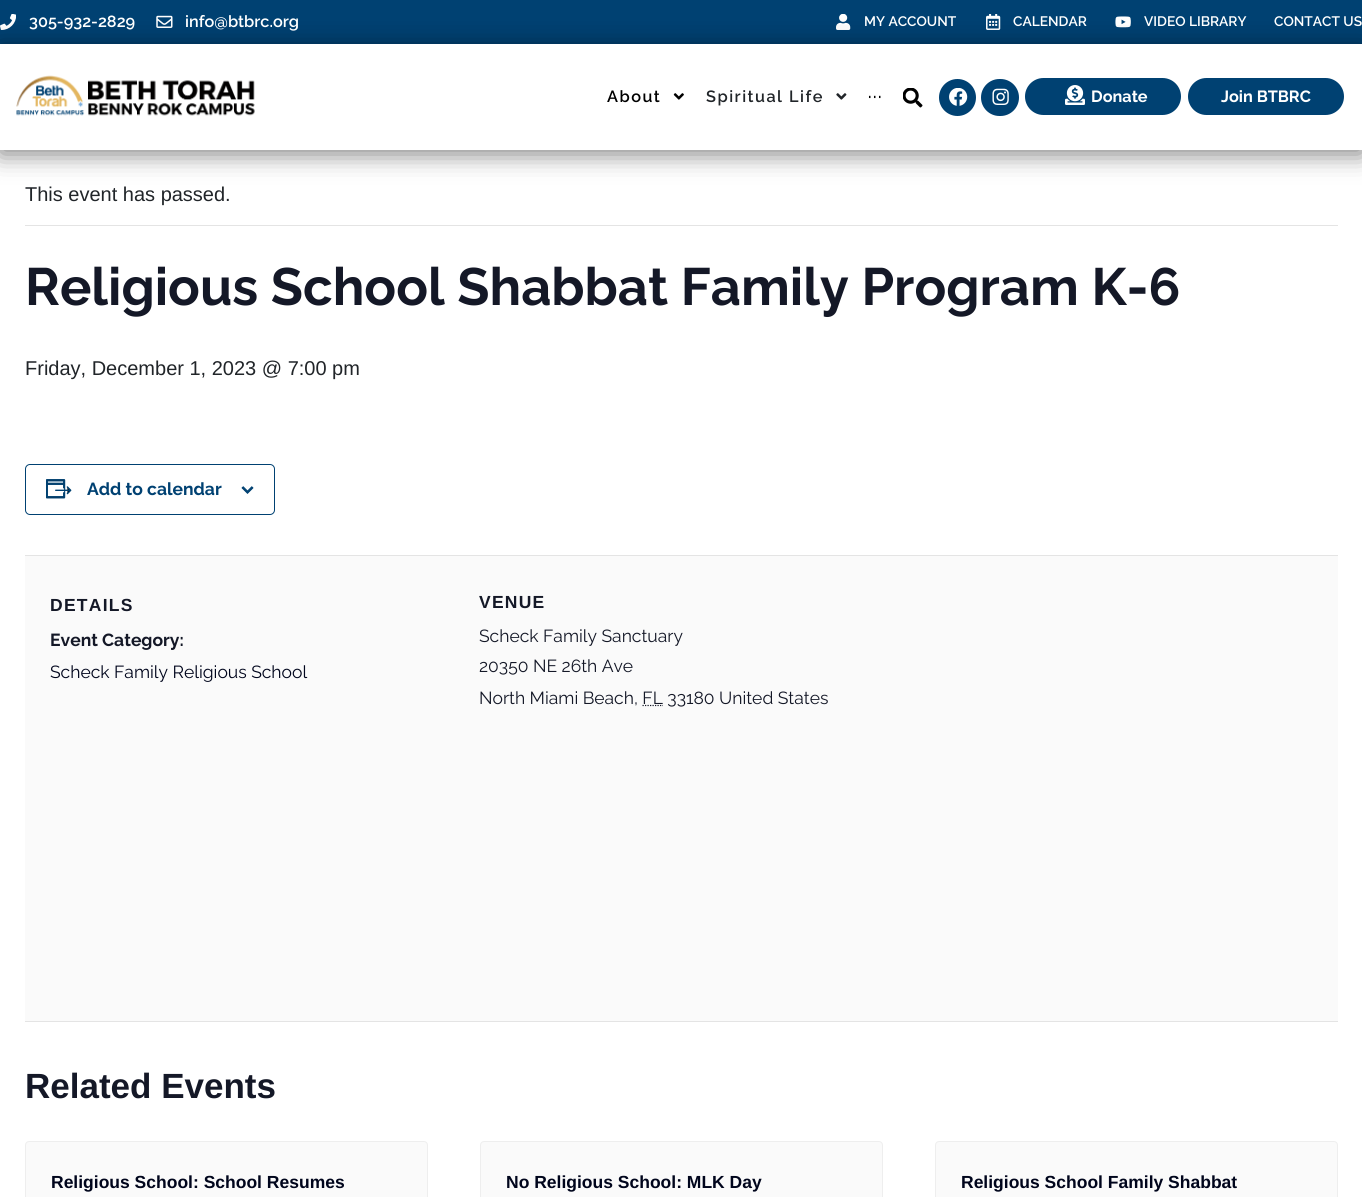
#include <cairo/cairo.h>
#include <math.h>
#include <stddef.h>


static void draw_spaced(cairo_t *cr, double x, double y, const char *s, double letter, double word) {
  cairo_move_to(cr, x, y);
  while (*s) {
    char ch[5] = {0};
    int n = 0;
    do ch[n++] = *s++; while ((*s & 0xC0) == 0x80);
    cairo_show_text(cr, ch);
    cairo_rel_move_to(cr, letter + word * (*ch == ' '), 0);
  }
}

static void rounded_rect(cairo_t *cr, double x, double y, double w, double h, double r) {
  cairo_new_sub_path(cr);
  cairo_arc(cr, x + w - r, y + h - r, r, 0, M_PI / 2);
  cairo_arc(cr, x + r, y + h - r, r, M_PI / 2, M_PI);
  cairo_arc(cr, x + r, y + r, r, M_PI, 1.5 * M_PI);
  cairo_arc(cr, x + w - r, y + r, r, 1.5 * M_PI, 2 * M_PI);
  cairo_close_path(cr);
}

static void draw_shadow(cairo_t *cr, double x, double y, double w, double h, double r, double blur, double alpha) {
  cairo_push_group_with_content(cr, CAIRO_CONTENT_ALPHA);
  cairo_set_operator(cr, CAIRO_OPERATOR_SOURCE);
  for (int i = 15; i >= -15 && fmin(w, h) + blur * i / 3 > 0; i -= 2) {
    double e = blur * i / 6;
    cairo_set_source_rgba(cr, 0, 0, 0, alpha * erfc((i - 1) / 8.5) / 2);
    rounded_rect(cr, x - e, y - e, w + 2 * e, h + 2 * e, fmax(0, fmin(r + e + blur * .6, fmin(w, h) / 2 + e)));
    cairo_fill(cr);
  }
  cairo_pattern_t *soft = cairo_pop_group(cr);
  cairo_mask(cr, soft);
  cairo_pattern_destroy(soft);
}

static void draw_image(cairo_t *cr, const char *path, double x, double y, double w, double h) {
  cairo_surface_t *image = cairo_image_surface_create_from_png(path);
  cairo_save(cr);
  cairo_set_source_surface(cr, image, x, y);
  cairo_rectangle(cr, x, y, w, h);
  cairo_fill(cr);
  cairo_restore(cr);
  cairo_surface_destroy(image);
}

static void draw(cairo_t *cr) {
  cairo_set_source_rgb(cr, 1, 1, 1);
  cairo_paint(cr);
  cairo_set_source_rgb(cr, 0, 65 / 255.0, 114 / 255.0);
  cairo_rectangle(cr, 0, 0, 1362, 44);
  cairo_fill(cr);
  draw_image(cr, "images/1.png", 0, 14, 16, 16);
  draw_image(cr, "images/2.png", 156, 15, 17, 13);
  draw_image(cr, "images/3.png", 836, 14, 15, 16);
  draw_image(cr, "images/4.png", 986, 14, 15, 16);
  draw_image(cr, "images/5.png", 1115, 16, 16, 12);
  cairo_save(cr);
  cairo_set_fill_rule(cr, CAIRO_FILL_RULE_EVEN_ODD);
  cairo_new_path(cr);
  cairo_move_to(cr, 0, 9);
  cairo_line_to(cr, 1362, 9);
  cairo_line_to(cr, 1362, 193);
  cairo_line_to(cr, 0, 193);
  cairo_close_path(cr);
  cairo_move_to(cr, 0, 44);
  cairo_line_to(cr, 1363, 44);
  cairo_line_to(cr, 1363, 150);
  cairo_line_to(cr, 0, 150);
  cairo_close_path(cr);
  cairo_clip(cr);
  cairo_set_source_rgb(cr, 0, 0, 0);
  draw_shadow(cr, 0, 48, 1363, 106, 0, 12.5, 0.5);
  cairo_restore(cr);
  draw_image(cr, "images/6.png", 16, 75, 239, 41);
  draw_image(cr, "images/7.png", 673, 93, 11, 7);
  draw_image(cr, "images/8.png", 836, 93, 11, 7);
  draw_image(cr, "images/9.png", 903, 88, 20, 20);
  cairo_arc(cr, 957.5, 97.5, 18.5, 0, 2 * M_PI);
  cairo_fill(cr);
  draw_image(cr, "images/10.png", 949, 88, 19, 18);
  rounded_rect(cr, 981, 79, 38, 37, 18.5);
  cairo_fill(cr);
  draw_image(cr, "images/11.png", 992, 88, 17, 17);
  rounded_rect(cr, 1025, 78, 156, 37, 18.5);
  cairo_fill(cr);
  draw_image(cr, "images/12.png", 1065, 85, 20, 20);
  rounded_rect(cr, 1188, 78, 156, 37, 18.5);
  cairo_fill(cr);
  cairo_set_source_rgb(cr, 228 / 255.0, 228 / 255.0, 228 / 255.0);
  cairo_rectangle(cr, 25, 225, 1313, 1);
  cairo_fill(cr);
  rounded_rect(cr, 25.5, 464.5, 249, 50, 4.5);
  cairo_set_source_rgb(cr, 0, 65 / 255.0, 114 / 255.0);
  cairo_set_line_width(cr, 1);
  cairo_stroke(cr);
  draw_image(cr, "images/13.png", 46, 479, 26, 20);
  draw_image(cr, "images/14.png", 241, 486, 13, 8);
  cairo_set_source_rgb(cr, 250 / 255.0, 250 / 255.0, 250 / 255.0);
  cairo_rectangle(cr, 25, 556, 1313, 465);
  cairo_fill(cr);
  cairo_set_source_rgb(cr, 228 / 255.0, 228 / 255.0, 228 / 255.0);
  cairo_rectangle(cr, 25, 555, 1313, 1);
  cairo_fill(cr);
  cairo_new_path(cr);
  cairo_move_to(cr, 642.5, 705.5);
  cairo_line_to(cr, 663, 705.5);
  cairo_set_source_rgb(cr, 20 / 255.0, 24 / 255.0, 39 / 255.0);
  cairo_set_line_width(cr, 1.2);
  cairo_set_dash(cr, (double[]){1.25, 1.25}, 2, 0);
  cairo_stroke(cr);
  cairo_set_source_rgb(cr, 228 / 255.0, 228 / 255.0, 228 / 255.0);
  cairo_rectangle(cr, 25, 1021, 1313, 1);
  cairo_fill(cr);
  cairo_set_source_rgb(cr, 250 / 255.0, 250 / 255.0, 250 / 255.0);
  rounded_rect(cr, 25.5, 1141.5, 402, 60, 3.5);
  cairo_fill_preserve(cr);
  cairo_set_source_rgb(cr, 238 / 255.0, 238 / 255.0, 238 / 255.0);
  cairo_set_line_width(cr, 1);
  cairo_set_dash(cr, NULL, 0, 0);
  cairo_stroke(cr);
  cairo_set_source_rgb(cr, 250 / 255.0, 250 / 255.0, 250 / 255.0);
  rounded_rect(cr, 480.5, 1141.5, 402, 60, 3.5);
  cairo_fill_preserve(cr);
  cairo_set_source_rgb(cr, 238 / 255.0, 238 / 255.0, 238 / 255.0);
  cairo_stroke(cr);
  cairo_set_source_rgb(cr, 250 / 255.0, 250 / 255.0, 250 / 255.0);
  rounded_rect(cr, 935.5, 1141.5, 402, 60, 3.5);
  cairo_fill_preserve(cr);
  cairo_set_source_rgb(cr, 238 / 255.0, 238 / 255.0, 238 / 255.0);
  cairo_stroke(cr);
  cairo_select_font_face(cr, "Raleway SemiBold", CAIRO_FONT_SLANT_NORMAL, CAIRO_FONT_WEIGHT_NORMAL);
  cairo_set_font_size(cr, 16.25);
  cairo_set_source_rgb(cr, 1, 1, 1);
  cairo_move_to(cr, 29, 27);
  cairo_show_text(cr, "305-932-2829");
  cairo_move_to(cr, 185, 27);
  cairo_show_text(cr, "info@btbrc.org");
  cairo_set_font_size(cr, 13.75);
  cairo_move_to(cr, 864, 26);
  cairo_show_text(cr, "MY ACCOUNT");
  cairo_move_to(cr, 1013, 26);
  cairo_show_text(cr, "CALENDAR");
  cairo_move_to(cr, 1144, 26);
  cairo_show_text(cr, "VIDEO LIBRARY");
  cairo_move_to(cr, 1274, 26);
  cairo_show_text(cr, "CONTACT US");
  cairo_set_font_size(cr, 16.25);
  cairo_set_source_rgb(cr, 0, 0, 0);
  draw_spaced(cr, 607, 102, "About", 1.5, 0);
  cairo_set_source_rgb(cr, 33 / 255.0, 37 / 255.0, 41 / 255.0);
  draw_spaced(cr, 706, 102, "Spiritual Life", 1.5, 0);
  cairo_set_source_rgb(cr, 0, 0, 0);
  draw_spaced(cr, 868, 102, "···", 1.5, 0);
  cairo_select_font_face(cr, "Raleway", CAIRO_FONT_SLANT_NORMAL, CAIRO_FONT_WEIGHT_BOLD);
  cairo_set_source_rgb(cr, 1, 1, 1);
  cairo_move_to(cr, 1091, 102);
  cairo_show_text(cr, "Donate");
  cairo_move_to(cr, 1221, 102);
  cairo_show_text(cr, "Join BTBRC");
  cairo_select_font_face(cr, "Liberation Sans", CAIRO_FONT_SLANT_NORMAL, CAIRO_FONT_WEIGHT_NORMAL);
  cairo_set_font_size(cr, 20);
  cairo_set_source_rgb(cr, 33 / 255.0, 37 / 255.0, 41 / 255.0);
  cairo_move_to(cr, 25, 201);
  cairo_show_text(cr, "This event has passed.");
  cairo_select_font_face(cr, "Raleway", CAIRO_FONT_SLANT_NORMAL, CAIRO_FONT_WEIGHT_BOLD);
  cairo_set_font_size(cr, 52.5);
  cairo_set_source_rgb(cr, 20 / 255.0, 24 / 255.0, 39 / 255.0);
  cairo_move_to(cr, 25, 305);
  cairo_show_text(cr, "Religious School Shabbat Family Program K-6");
  cairo_select_font_face(cr, "Liberation Sans", CAIRO_FONT_SLANT_NORMAL, CAIRO_FONT_WEIGHT_NORMAL);
  cairo_set_font_size(cr, 20);
  cairo_set_source_rgb(cr, 33 / 255.0, 37 / 255.0, 41 / 255.0);
  cairo_move_to(cr, 25, 375);
  cairo_show_text(cr, "Friday, December 1, 2023 @ 7:00 pm");
  cairo_select_font_face(cr, "Raleway", CAIRO_FONT_SLANT_NORMAL, CAIRO_FONT_WEIGHT_BOLD);
  cairo_set_font_size(cr, 17.5);
  cairo_set_source_rgb(cr, 0, 65 / 255.0, 114 / 255.0);
  cairo_move_to(cr, 87, 495);
  cairo_show_text(cr, "Add to calendar");
  cairo_select_font_face(cr, "Liberation Sans", CAIRO_FONT_SLANT_NORMAL, CAIRO_FONT_WEIGHT_BOLD);
  cairo_set_source_rgb(cr, 20 / 255.0, 24 / 255.0, 39 / 255.0);
  draw_spaced(cr, 50, 611, "DETAILS", 1.25, 0);
  cairo_select_font_face(cr, "Raleway", CAIRO_FONT_SLANT_NORMAL, CAIRO_FONT_WEIGHT_BOLD);
  cairo_move_to(cr, 50, 646);
  cairo_show_text(cr, "Event Category:");
  cairo_select_font_face(cr, "Raleway", CAIRO_FONT_SLANT_NORMAL, CAIRO_FONT_WEIGHT_NORMAL);
  cairo_set_source_rgb(cr, 0, 5 / 255.0, 28 / 255.0);
  cairo_move_to(cr, 50, 678);
  cairo_show_text(cr, "Scheck Family Religious School");
  cairo_select_font_face(cr, "Liberation Sans", CAIRO_FONT_SLANT_NORMAL, CAIRO_FONT_WEIGHT_BOLD);
  cairo_set_source_rgb(cr, 20 / 255.0, 24 / 255.0, 39 / 255.0);
  draw_spaced(cr, 479, 608, "VENUE", 1.25, 0);
  cairo_select_font_face(cr, "Raleway", CAIRO_FONT_SLANT_NORMAL, CAIRO_FONT_WEIGHT_NORMAL);
  cairo_move_to(cr, 479, 642);
  cairo_show_text(cr, "Scheck Family Sanctuary");
  cairo_move_to(cr, 479, 672);
  cairo_show_text(cr, "20350 NE 26th Ave");
  cairo_move_to(cr, 479, 704);
  cairo_show_text(cr, "North Miami Beach, FL 33180 United States");
  cairo_select_font_face(cr, "Liberation Sans", CAIRO_FONT_SLANT_NORMAL, CAIRO_FONT_WEIGHT_BOLD);
  cairo_set_font_size(cr, 35);
  cairo_move_to(cr, 25, 1098);
  cairo_show_text(cr, "Related Events");
  cairo_set_font_size(cr, 17.5);
  cairo_set_source_rgb(cr, 0, 5 / 255.0, 28 / 255.0);
  cairo_move_to(cr, 51, 1188);
  cairo_show_text(cr, "Religious School: School Resumes");
  cairo_move_to(cr, 506, 1188);
  cairo_show_text(cr, "No Religious School: MLK Day");
  cairo_move_to(cr, 961, 1188);
  cairo_show_text(cr, "Religious School Family Shabbat");
}

int main(void) {
  cairo_surface_t *surface = cairo_image_surface_create(CAIRO_FORMAT_RGB24, 1362, 1197);
  cairo_t *cr = cairo_create(surface);
  cairo_font_options_t *options = cairo_font_options_create();
  cairo_font_options_set_hint_metrics(options, CAIRO_HINT_METRICS_OFF);
  cairo_font_options_set_hint_style(options, CAIRO_HINT_STYLE_NONE);
  cairo_set_font_options(cr, options);
  cairo_set_miter_limit(cr, 4);
  draw(cr);
  cairo_surface_write_to_png(surface, "out.png");
  cairo_font_options_destroy(options);
  cairo_destroy(cr);
  cairo_surface_destroy(surface);
  return 0;
}
